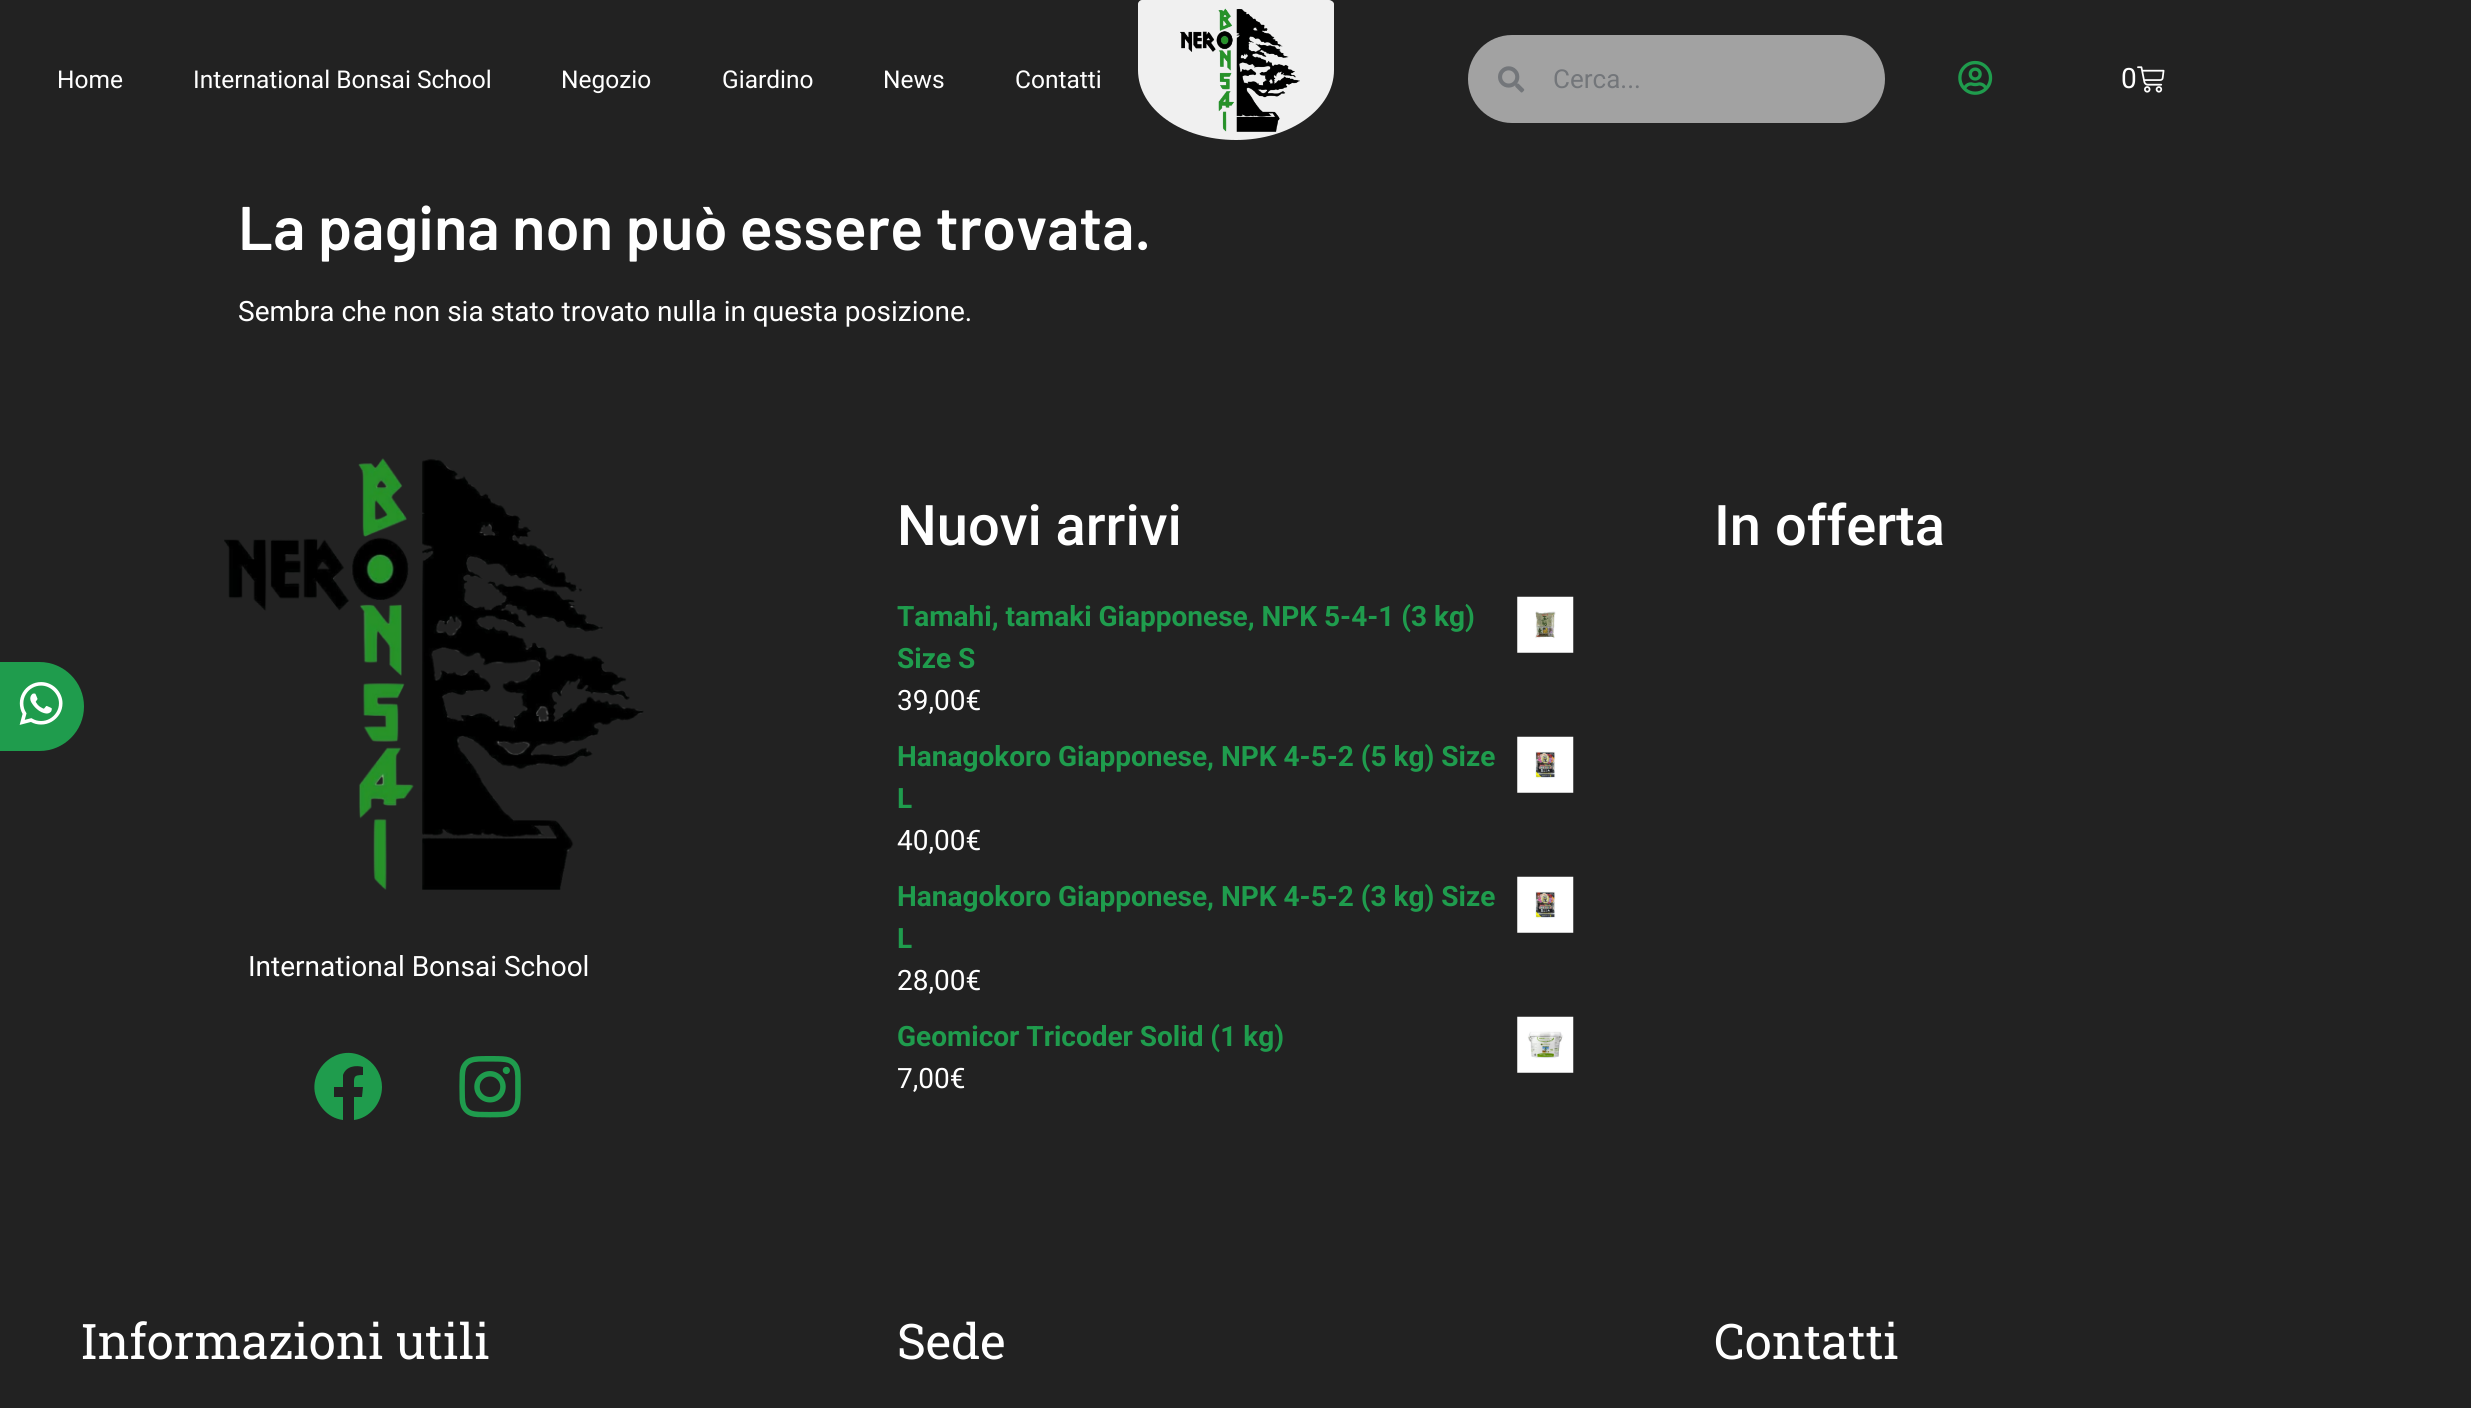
#include <cairo/cairo.h>
#include <math.h>
#include <stddef.h>


static void rounded_rect(cairo_t *cr, double x, double y, double w, double h, double r) {
  cairo_new_sub_path(cr);
  cairo_arc(cr, x + w - r, y + h - r, r, 0, M_PI / 2);
  cairo_arc(cr, x + r, y + h - r, r, M_PI / 2, M_PI);
  cairo_arc(cr, x + r, y + r, r, M_PI, 1.5 * M_PI);
  cairo_arc(cr, x + w - r, y + r, r, 1.5 * M_PI, 2 * M_PI);
  cairo_close_path(cr);
}

static void draw_image(cairo_t *cr, const char *path, double x, double y, double w, double h) {
  cairo_surface_t *image = cairo_image_surface_create_from_png(path);
  cairo_save(cr);
  cairo_set_source_surface(cr, image, x, y);
  cairo_rectangle(cr, x, y, w, h);
  cairo_fill(cr);
  cairo_restore(cr);
  cairo_surface_destroy(image);
}

static void draw(cairo_t *cr) {
  cairo_set_source_rgb(cr, 34 / 255.0, 34 / 255.0, 34 / 255.0);
  cairo_paint(cr);
  cairo_set_source_rgb(cr, 240 / 255.0, 240 / 255.0, 240 / 255.0);
  cairo_new_path(cr);
  cairo_move_to(cr, 1142, 0);
  cairo_line_to(cr, 1329, 0);
  cairo_curve_to(cr, 1331, 0, 1334, 2, 1334, 4);
  cairo_line_to(cr, 1334, 70);
  cairo_curve_to(cr, 1334, 109, 1290, 140, 1236, 140);
  cairo_curve_to(cr, 1181, 140, 1138, 109, 1138, 70);
  cairo_line_to(cr, 1138, 4);
  cairo_curve_to(cr, 1138, 2, 1140, 0, 1142, 0);
  cairo_close_path(cr);
  cairo_fill(cr);
  draw_image(cr, "images/1.png", 1180, 8, 120, 124);
  cairo_set_source_rgb(cr, 162 / 255.0, 162 / 255.0, 162 / 255.0);
  rounded_rect(cr, 1468, 35, 417, 88, 44);
  cairo_fill(cr);
  draw_image(cr, "images/2.png", 1498, 66, 27, 27);
  draw_image(cr, "images/3.png", 1958, 60, 35, 35);
  draw_image(cr, "images/4.png", 2137, 66, 28, 27);
  cairo_set_source_rgb(cr, 31 / 255.0, 156 / 255.0, 77 / 255.0);
  cairo_new_path(cr);
  cairo_move_to(cr, -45, 662);
  cairo_line_to(cr, 39.5, 662);
  cairo_curve_to(cr, 64, 662, 84, 682, 84, 706.5);
  cairo_curve_to(cr, 84, 731, 64, 751, 39.5, 751);
  cairo_line_to(cr, -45, 751);
  cairo_close_path(cr);
  cairo_fill(cr);
  draw_image(cr, "images/5.png", 19, 682, 44, 43);
  draw_image(cr, "images/6.png", 224, 458, 420, 432);
  cairo_new_path(cr);
  cairo_move_to(cr, 382, 1087);
  cairo_curve_to(cr, 382, 1103, 370, 1118, 354, 1120);
  cairo_line_to(cr, 354, 1097);
  cairo_line_to(cr, 362, 1097);
  cairo_line_to(cr, 363, 1087);
  cairo_line_to(cr, 354, 1087);
  cairo_curve_to(cr, 354, 1077, 353, 1075, 363, 1075);
  cairo_line_to(cr, 363, 1067);
  cairo_curve_to(cr, 356, 1065, 346, 1066, 343, 1075);
  cairo_line_to(cr, 343, 1087);
  cairo_line_to(cr, 334, 1087);
  cairo_line_to(cr, 334, 1097);
  cairo_line_to(cr, 343, 1097);
  cairo_line_to(cr, 343, 1120);
  cairo_curve_to(cr, 335, 1119, 328, 1115, 323, 1109);
  cairo_curve_to(cr, 297, 1079, 335, 1037, 367, 1059);
  cairo_curve_to(cr, 376, 1065, 382, 1076, 382, 1087);
  cairo_close_path(cr);
  cairo_fill(cr);
  draw_image(cr, "images/7.png", 459, 1056, 62, 62);
  draw_image(cr, "images/8.png", 1517, 596, 57, 57);
  draw_image(cr, "images/9.png", 1517, 736, 57, 57);
  draw_image(cr, "images/9.png", 1517, 876, 57, 57);
  draw_image(cr, "images/10.png", 1517, 1016, 57, 57);
  cairo_select_font_face(cr, "Roboto", CAIRO_FONT_SLANT_NORMAL, CAIRO_FONT_WEIGHT_NORMAL);
  cairo_set_font_size(cr, 24.5);
  cairo_set_source_rgb(cr, 1, 1, 1);
  cairo_move_to(cr, 57, 88);
  cairo_show_text(cr, "Home");
  cairo_move_to(cr, 193, 88);
  cairo_show_text(cr, "International Bonsai School");
  cairo_move_to(cr, 561, 88);
  cairo_show_text(cr, "Negozio");
  cairo_move_to(cr, 722, 88);
  cairo_show_text(cr, "Giardino");
  cairo_move_to(cr, 883, 88);
  cairo_show_text(cr, "News");
  cairo_move_to(cr, 1015, 88);
  cairo_show_text(cr, "Contatti");
  cairo_set_font_size(cr, 26);
  cairo_set_source_rgb(cr, 115 / 255.0, 118 / 255.0, 122 / 255.0);
  cairo_move_to(cr, 1553, 88);
  cairo_show_text(cr, "Cerca...");
  cairo_set_font_size(cr, 28);
  cairo_set_source_rgb(cr, 1, 1, 1);
  cairo_move_to(cr, 2121, 88);
  cairo_show_text(cr, "0");
  cairo_select_font_face(cr, "Barlow SemiBold", CAIRO_FONT_SLANT_NORMAL, CAIRO_FONT_WEIGHT_NORMAL);
  cairo_set_font_size(cr, 61.6);
  cairo_move_to(cr, 238, 250);
  cairo_show_text(cr, "La pagina non può essere trovata.");
  cairo_select_font_face(cr, "Roboto", CAIRO_FONT_SLANT_NORMAL, CAIRO_FONT_WEIGHT_NORMAL);
  cairo_set_font_size(cr, 28);
  cairo_move_to(cr, 238, 321);
  cairo_show_text(cr, "Sembra che non sia stato trovato nulla in questa posizione.");
  cairo_move_to(cr, 248, 976);
  cairo_show_text(cr, "International Bonsai School");
  cairo_select_font_face(cr, "Roboto Medium", CAIRO_FONT_SLANT_NORMAL, CAIRO_FONT_WEIGHT_NORMAL);
  cairo_set_font_size(cr, 56);
  cairo_move_to(cr, 897, 545);
  cairo_show_text(cr, "Nuovi arrivi");
  cairo_select_font_face(cr, "Roboto", CAIRO_FONT_SLANT_NORMAL, CAIRO_FONT_WEIGHT_BOLD);
  cairo_set_font_size(cr, 28);
  cairo_set_source_rgb(cr, 31 / 255.0, 156 / 255.0, 77 / 255.0);
  cairo_move_to(cr, 897, 626);
  cairo_show_text(cr, "Tamahi, tamaki Giapponese, NPK 5-4-1 (3 kg)");
  cairo_move_to(cr, 897, 668);
  cairo_show_text(cr, "Size S");
  cairo_select_font_face(cr, "Roboto", CAIRO_FONT_SLANT_NORMAL, CAIRO_FONT_WEIGHT_NORMAL);
  cairo_set_source_rgb(cr, 1, 1, 1);
  cairo_move_to(cr, 897, 710);
  cairo_show_text(cr, "39,00€");
  cairo_select_font_face(cr, "Roboto", CAIRO_FONT_SLANT_NORMAL, CAIRO_FONT_WEIGHT_BOLD);
  cairo_set_source_rgb(cr, 31 / 255.0, 156 / 255.0, 77 / 255.0);
  cairo_move_to(cr, 897, 766);
  cairo_show_text(cr, "Hanagokoro Giapponese, NPK 4-5-2 (5 kg) Size");
  cairo_move_to(cr, 897, 808);
  cairo_show_text(cr, "L");
  cairo_select_font_face(cr, "Roboto", CAIRO_FONT_SLANT_NORMAL, CAIRO_FONT_WEIGHT_NORMAL);
  cairo_set_source_rgb(cr, 1, 1, 1);
  cairo_move_to(cr, 897, 850);
  cairo_show_text(cr, "40,00€");
  cairo_select_font_face(cr, "Roboto", CAIRO_FONT_SLANT_NORMAL, CAIRO_FONT_WEIGHT_BOLD);
  cairo_set_source_rgb(cr, 31 / 255.0, 156 / 255.0, 77 / 255.0);
  cairo_move_to(cr, 897, 906);
  cairo_show_text(cr, "Hanagokoro Giapponese, NPK 4-5-2 (3 kg) Size");
  cairo_move_to(cr, 897, 948);
  cairo_show_text(cr, "L");
  cairo_select_font_face(cr, "Roboto", CAIRO_FONT_SLANT_NORMAL, CAIRO_FONT_WEIGHT_NORMAL);
  cairo_set_source_rgb(cr, 1, 1, 1);
  cairo_move_to(cr, 897, 990);
  cairo_show_text(cr, "28,00€");
  cairo_select_font_face(cr, "Roboto", CAIRO_FONT_SLANT_NORMAL, CAIRO_FONT_WEIGHT_BOLD);
  cairo_set_source_rgb(cr, 31 / 255.0, 156 / 255.0, 77 / 255.0);
  cairo_move_to(cr, 897, 1046);
  cairo_show_text(cr, "Geomicor Tricoder Solid (1 kg)");
  cairo_select_font_face(cr, "Roboto", CAIRO_FONT_SLANT_NORMAL, CAIRO_FONT_WEIGHT_NORMAL);
  cairo_set_source_rgb(cr, 1, 1, 1);
  cairo_move_to(cr, 897, 1088);
  cairo_show_text(cr, "7,00€");
  cairo_select_font_face(cr, "Roboto Medium", CAIRO_FONT_SLANT_NORMAL, CAIRO_FONT_WEIGHT_NORMAL);
  cairo_set_font_size(cr, 56);
  cairo_move_to(cr, 1714, 545);
  cairo_show_text(cr, "In offerta");
  cairo_select_font_face(cr, "Roboto Slab", CAIRO_FONT_SLANT_NORMAL, CAIRO_FONT_WEIGHT_NORMAL);
  cairo_set_font_size(cr, 49);
  cairo_move_to(cr, 81, 1359);
  cairo_show_text(cr, "Informazioni utili");
  cairo_move_to(cr, 897, 1359);
  cairo_show_text(cr, "Sede");
  cairo_move_to(cr, 1714, 1359);
  cairo_show_text(cr, "Contatti");
}

int main(void) {
  cairo_surface_t *surface = cairo_image_surface_create(CAIRO_FORMAT_RGB24, 2471, 1408);
  cairo_t *cr = cairo_create(surface);
  cairo_font_options_t *options = cairo_font_options_create();
  cairo_font_options_set_hint_metrics(options, CAIRO_HINT_METRICS_OFF);
  cairo_font_options_set_hint_style(options, CAIRO_HINT_STYLE_NONE);
  cairo_set_font_options(cr, options);
  cairo_set_miter_limit(cr, 4);
  draw(cr);
  cairo_surface_write_to_png(surface, "out.png");
  cairo_font_options_destroy(options);
  cairo_destroy(cr);
  cairo_surface_destroy(surface);
  return 0;
}
